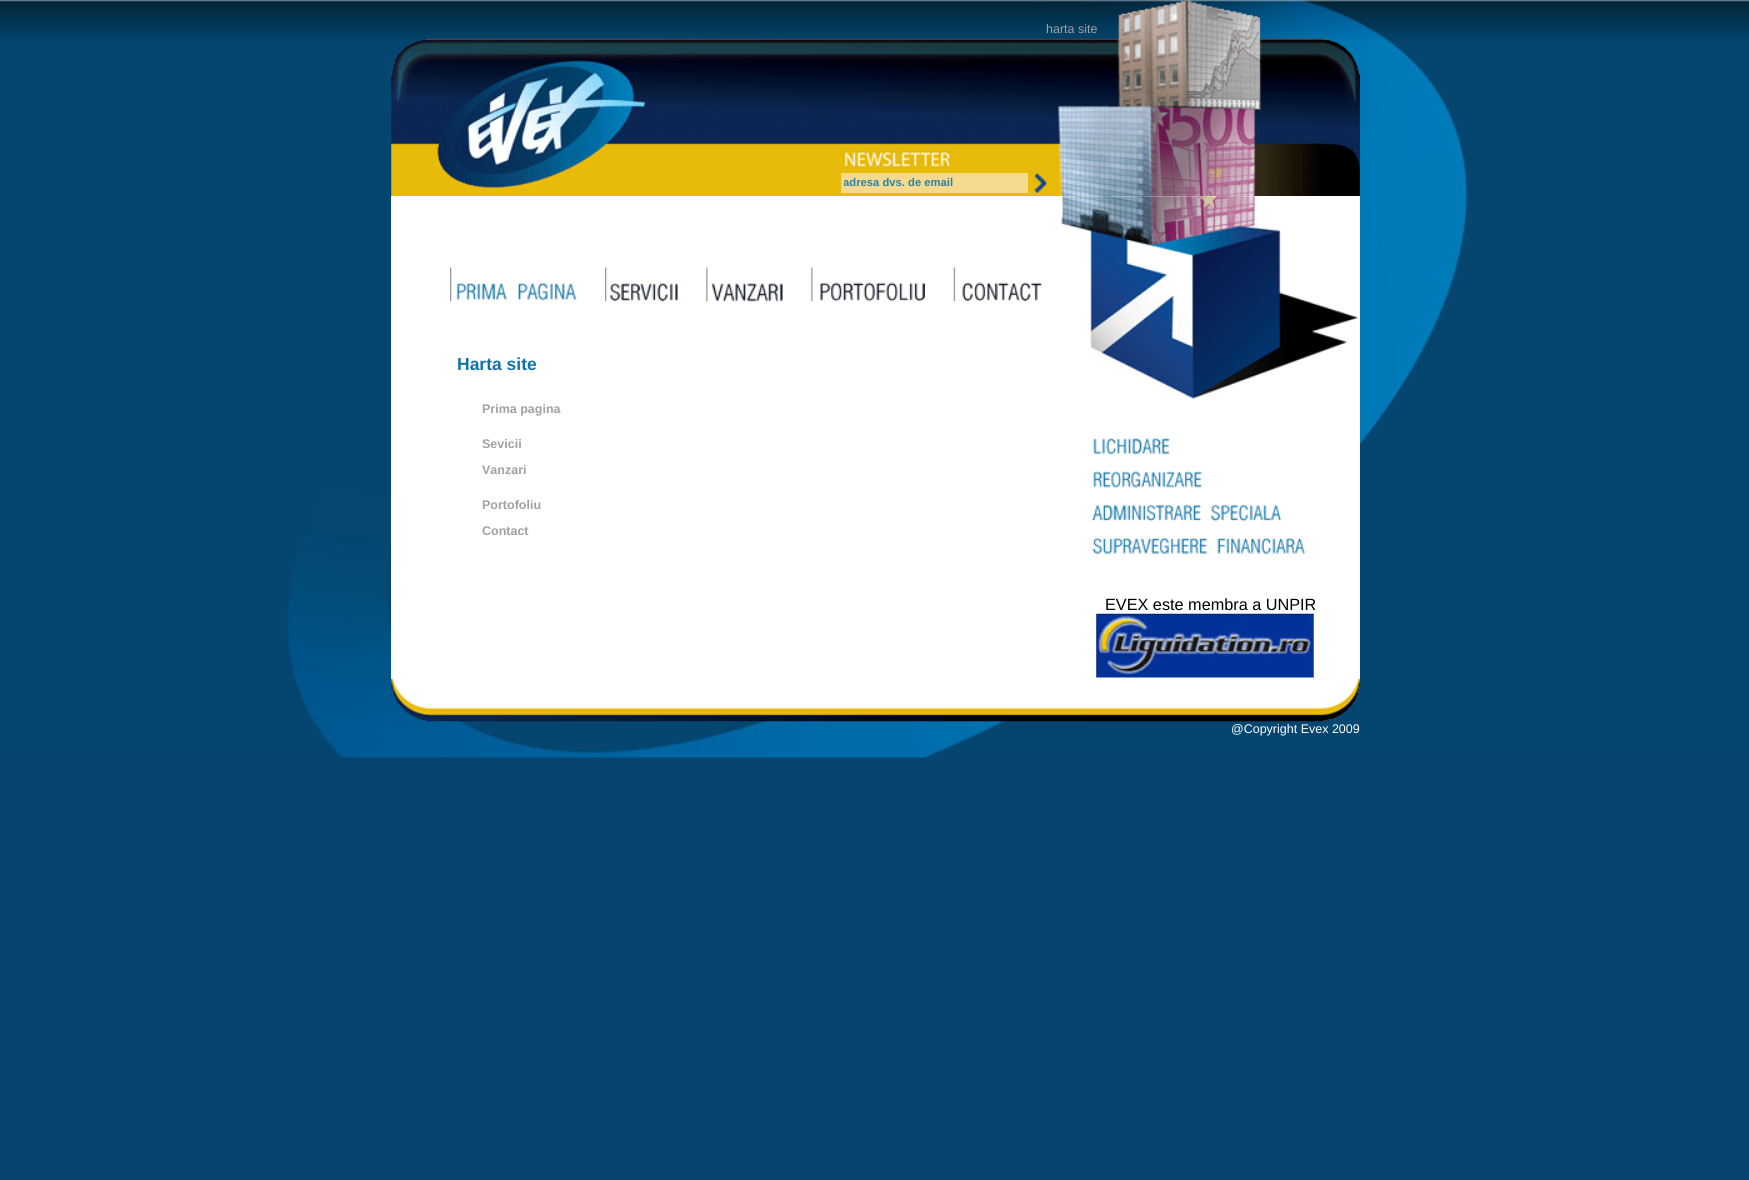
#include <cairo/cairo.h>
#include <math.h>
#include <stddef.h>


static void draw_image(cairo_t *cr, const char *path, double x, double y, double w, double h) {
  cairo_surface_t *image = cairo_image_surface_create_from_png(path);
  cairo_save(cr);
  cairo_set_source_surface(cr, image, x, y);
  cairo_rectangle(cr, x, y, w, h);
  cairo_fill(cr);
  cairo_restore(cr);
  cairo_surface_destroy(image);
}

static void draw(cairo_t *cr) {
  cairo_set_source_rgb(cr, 7 / 255.0, 68 / 255.0, 112 / 255.0);
  cairo_paint(cr);
  draw_image(cr, "images/1.png", 0, 0, 1749, 758);
  draw_image(cr, "images/2.png", 391, 0, 969, 196);
  cairo_set_source_rgb(cr, 245 / 255.0, 218 / 255.0, 141 / 255.0);
  cairo_rectangle(cr, 841, 173, 187, 20);
  cairo_fill(cr);
  draw_image(cr, "images/3.png", 1034, 173, 13, 20);
  cairo_set_source_rgb(cr, 1, 1, 1);
  cairo_rectangle(cr, 391, 196, 969, 483);
  cairo_fill(cr);
  draw_image(cr, "images/4.png", 450, 267, 127, 35);
  draw_image(cr, "images/5.png", 605, 267, 73, 35);
  draw_image(cr, "images/6.png", 706, 267, 77, 35);
  draw_image(cr, "images/7.png", 811, 267, 114, 35);
  draw_image(cr, "images/8.png", 953, 267, 89, 35);
  draw_image(cr, "images/9.png", 1061, 196, 297, 203);
  draw_image(cr, "images/10.png", 1092, 438, 213, 116);
  draw_image(cr, "images/11.png", 1096, 613, 218, 65);
  draw_image(cr, "images/12.png", 391, 678, 969, 44);
  cairo_select_font_face(cr, "Liberation Sans", CAIRO_FONT_SLANT_NORMAL, CAIRO_FONT_WEIGHT_NORMAL);
  cairo_set_font_size(cr, 12.5);
  cairo_set_source_rgb(cr, 161 / 255.0, 161 / 255.0, 161 / 255.0);
  cairo_move_to(cr, 1046, 33);
  cairo_show_text(cr, "harta site");
  cairo_save(cr);
  cairo_rectangle(cr, 844, 176, 181, 13);
  cairo_clip(cr);
  cairo_select_font_face(cr, "Liberation Sans", CAIRO_FONT_SLANT_NORMAL, CAIRO_FONT_WEIGHT_BOLD);
  cairo_set_font_size(cr, 11.25);
  cairo_set_source_rgb(cr, 42 / 255.0, 130 / 255.0, 166 / 255.0);
  cairo_move_to(cr, 843, 186);
  cairo_show_text(cr, "adresa dvs. de email");
  cairo_restore(cr);
  cairo_select_font_face(cr, "Liberation Sans", CAIRO_FONT_SLANT_NORMAL, CAIRO_FONT_WEIGHT_BOLD);
  cairo_set_font_size(cr, 17.5);
  cairo_set_source_rgb(cr, 17 / 255.0, 114 / 255.0, 169 / 255.0);
  cairo_move_to(cr, 457, 370);
  cairo_show_text(cr, "Harta site");
  cairo_set_font_size(cr, 12.5);
  cairo_set_source_rgb(cr, 161 / 255.0, 161 / 255.0, 161 / 255.0);
  cairo_move_to(cr, 482, 413);
  cairo_show_text(cr, "Prima pagina");
  cairo_move_to(cr, 482, 448);
  cairo_show_text(cr, "Sevicii");
  cairo_move_to(cr, 482, 474);
  cairo_show_text(cr, "Vanzari");
  cairo_move_to(cr, 482, 509);
  cairo_show_text(cr, "Portofoliu");
  cairo_move_to(cr, 482, 535);
  cairo_show_text(cr, "Contact");
  cairo_select_font_face(cr, "Liberation Sans", CAIRO_FONT_SLANT_NORMAL, CAIRO_FONT_WEIGHT_NORMAL);
  cairo_set_font_size(cr, 16.25);
  cairo_set_source_rgb(cr, 0, 0, 0);
  cairo_move_to(cr, 1105, 610);
  cairo_show_text(cr, "EVEX este membra a UNPIR");
  cairo_set_font_size(cr, 12.5);
  cairo_set_source_rgb(cr, 1, 1, 1);
  cairo_move_to(cr, 1231, 733);
  cairo_show_text(cr, "@Copyright Evex 2009");
}

int main(void) {
  cairo_surface_t *surface = cairo_image_surface_create(CAIRO_FORMAT_RGB24, 1749, 1180);
  cairo_t *cr = cairo_create(surface);
  cairo_font_options_t *options = cairo_font_options_create();
  cairo_font_options_set_hint_metrics(options, CAIRO_HINT_METRICS_OFF);
  cairo_font_options_set_hint_style(options, CAIRO_HINT_STYLE_NONE);
  cairo_set_font_options(cr, options);
  cairo_set_miter_limit(cr, 4);
  draw(cr);
  cairo_surface_write_to_png(surface, "out.png");
  cairo_font_options_destroy(options);
  cairo_destroy(cr);
  cairo_surface_destroy(surface);
  return 0;
}
